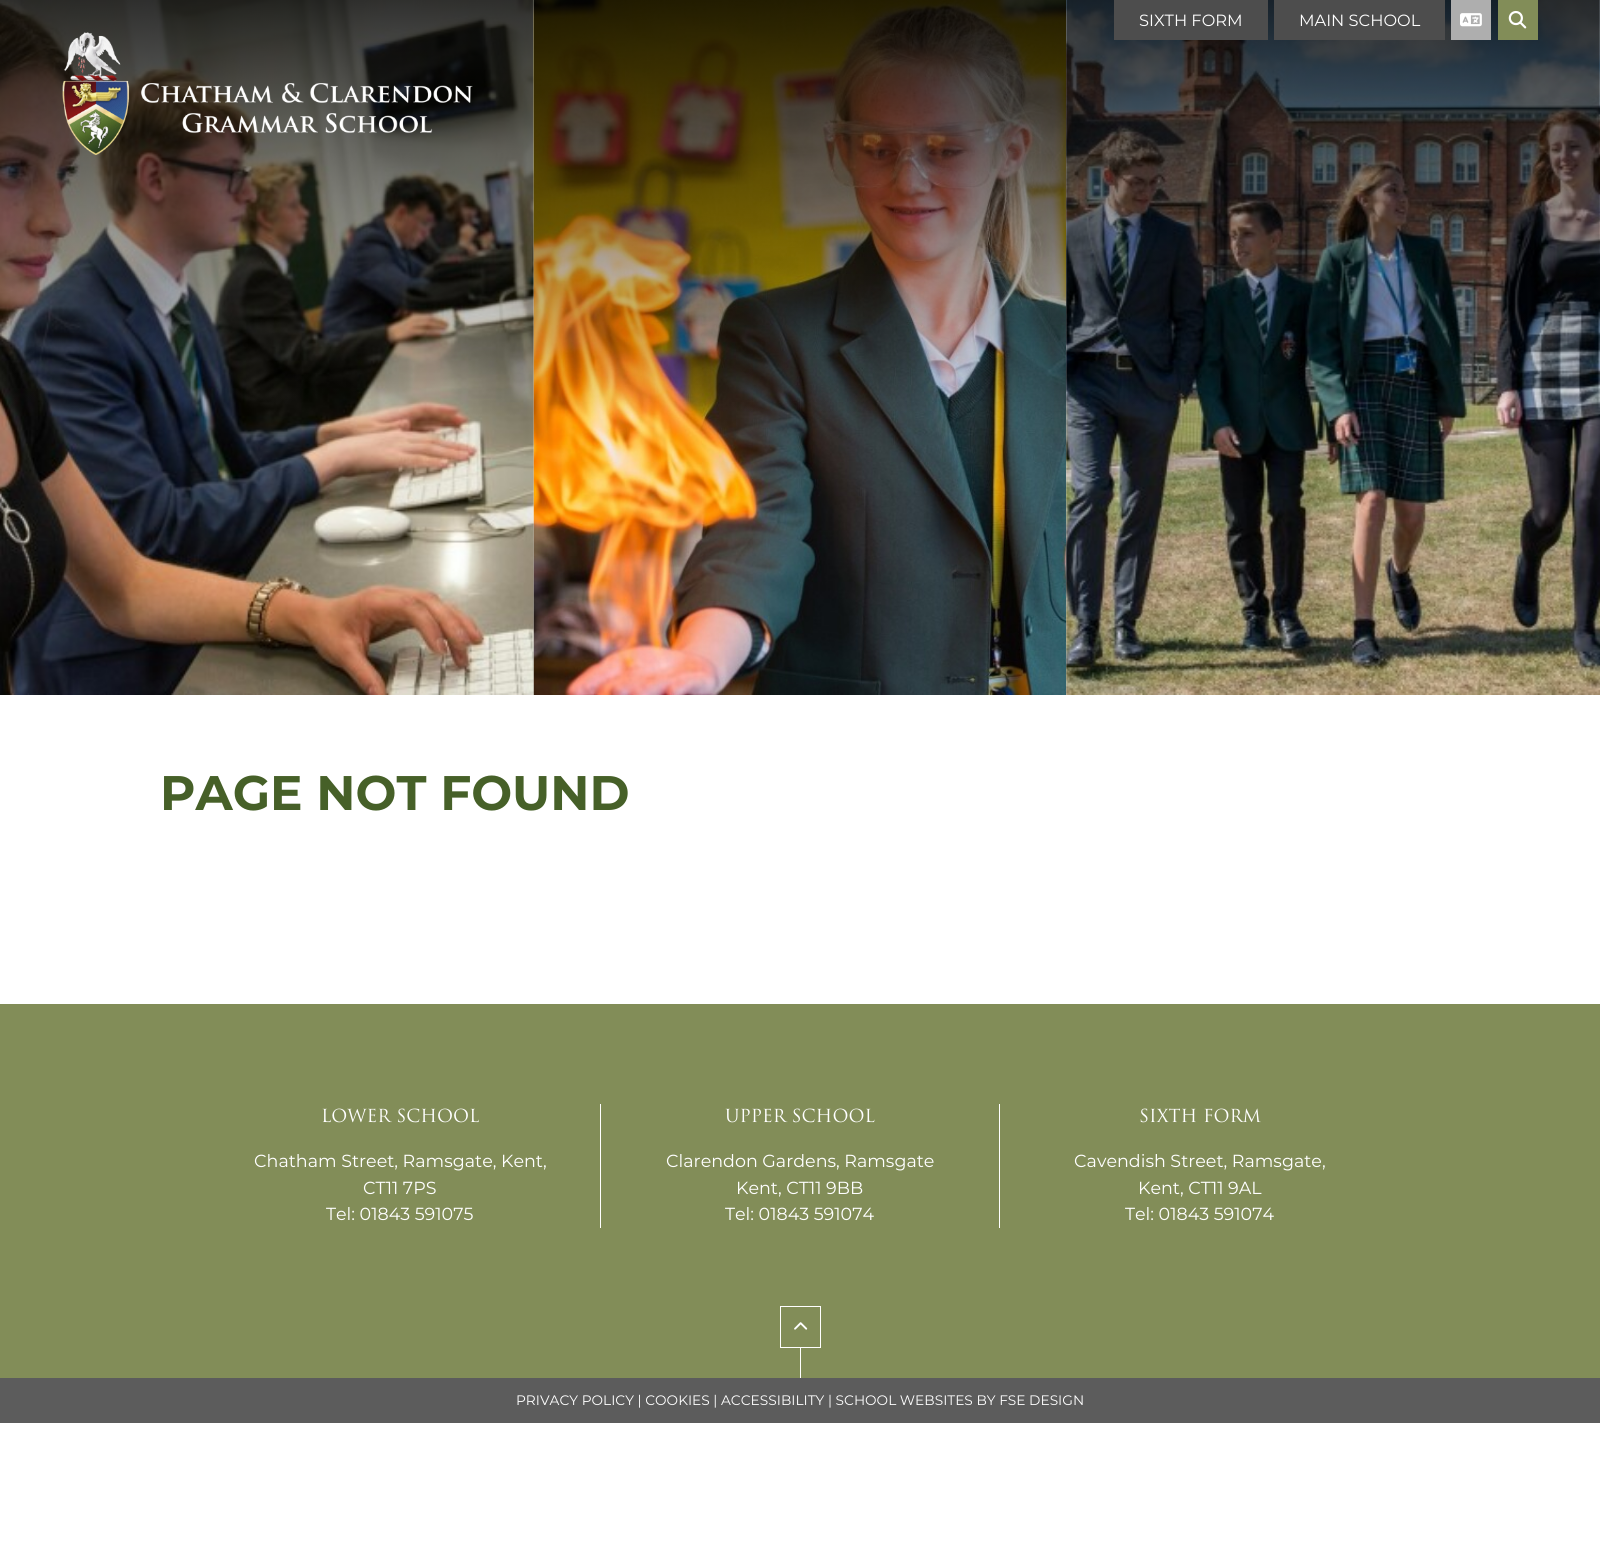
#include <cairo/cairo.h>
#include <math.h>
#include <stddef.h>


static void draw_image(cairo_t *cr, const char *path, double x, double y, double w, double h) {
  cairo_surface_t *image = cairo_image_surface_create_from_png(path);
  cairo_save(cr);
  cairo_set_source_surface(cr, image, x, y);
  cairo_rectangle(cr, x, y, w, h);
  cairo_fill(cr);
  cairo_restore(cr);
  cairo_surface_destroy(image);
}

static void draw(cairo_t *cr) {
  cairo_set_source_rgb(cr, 1, 1, 1);
  cairo_paint(cr);
  draw_image(cr, "images/1.png", 0, 0, 534, 695);
  draw_image(cr, "images/2.png", 533, 0, 534, 695);
  draw_image(cr, "images/3.png", 1066, 0, 534, 695);
  cairo_set_source_rgb(cr, 77 / 255.0, 77 / 255.0, 77 / 255.0);
  cairo_rectangle(cr, 1114, 0, 154, 40);
  cairo_fill(cr);
  cairo_rectangle(cr, 1274, 0, 171, 40);
  cairo_fill(cr);
  cairo_set_source_rgb(cr, 174 / 255.0, 174 / 255.0, 174 / 255.0);
  cairo_rectangle(cr, 1451, 0, 40, 40);
  cairo_fill(cr);
  draw_image(cr, "images/4.png", 1460, 13, 22, 14);
  cairo_set_source_rgb(cr, 130 / 255.0, 141 / 255.0, 88 / 255.0);
  cairo_rectangle(cr, 1498, 0, 40, 40);
  cairo_fill(cr);
  draw_image(cr, "images/5.png", 1508, 10, 19, 19);
  draw_image(cr, "images/6.png", 62, 32, 411, 123);
  cairo_rectangle(cr, 0, 1004, 1600, 374);
  cairo_fill(cr);
  cairo_set_source_rgb(cr, 1, 1, 1);
  cairo_rectangle(cr, 999, 1104, 1, 124);
  cairo_fill(cr);
  cairo_rectangle(cr, 600, 1104, 1, 124);
  cairo_fill(cr);
  cairo_rectangle(cr, 780.5, 1306.5, 40, 41);
  cairo_set_line_width(cr, 1);
  cairo_stroke(cr);
  draw_image(cr, "images/7.png", 794, 1322, 14, 8);
  cairo_rectangle(cr, 800, 1348, 1, 30);
  cairo_fill(cr);
  cairo_set_source_rgb(cr, 92 / 255.0, 92 / 255.0, 92 / 255.0);
  cairo_rectangle(cr, 0, 1378, 1600, 45);
  cairo_fill(cr);
  cairo_select_font_face(cr, "Montserrat", CAIRO_FONT_SLANT_NORMAL, CAIRO_FONT_WEIGHT_NORMAL);
  cairo_set_font_size(cr, 16.25);
  cairo_set_source_rgb(cr, 1, 1, 1);
  cairo_move_to(cr, 1139, 26);
  cairo_show_text(cr, "SIXTH FORM");
  cairo_move_to(cr, 1299, 26);
  cairo_show_text(cr, "MAIN SCHOOL");
  cairo_select_font_face(cr, "Montserrat", CAIRO_FONT_SLANT_NORMAL, CAIRO_FONT_WEIGHT_BOLD);
  cairo_set_font_size(cr, 48.5);
  cairo_set_source_rgb(cr, 70 / 255.0, 96 / 255.0, 40 / 255.0);
  cairo_move_to(cr, 160, 810);
  cairo_show_text(cr, "PAGE NOT FOUND");
  cairo_select_font_face(cr, "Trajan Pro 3", CAIRO_FONT_SLANT_NORMAL, CAIRO_FONT_WEIGHT_NORMAL);
  cairo_set_font_size(cr, 17.5);
  cairo_set_source_rgb(cr, 1, 1, 1);
  cairo_move_to(cr, 321, 1122);
  cairo_show_text(cr, "LOWER SCHOOL");
  cairo_select_font_face(cr, "Montserrat", CAIRO_FONT_SLANT_NORMAL, CAIRO_FONT_WEIGHT_NORMAL);
  cairo_move_to(cr, 254, 1167);
  cairo_show_text(cr, "Chatham Street, Ramsgate, Kent,");
  cairo_move_to(cr, 363, 1194);
  cairo_show_text(cr, "CT11 7PS");
  cairo_move_to(cr, 326, 1220);
  cairo_show_text(cr, "Tel: 01843 591075");
  cairo_select_font_face(cr, "Trajan Pro 3", CAIRO_FONT_SLANT_NORMAL, CAIRO_FONT_WEIGHT_NORMAL);
  cairo_move_to(cr, 725, 1122);
  cairo_show_text(cr, "UPPER SCHOOL");
  cairo_select_font_face(cr, "Montserrat", CAIRO_FONT_SLANT_NORMAL, CAIRO_FONT_WEIGHT_NORMAL);
  cairo_move_to(cr, 666, 1167);
  cairo_show_text(cr, "Clarendon Gardens, Ramsgate");
  cairo_move_to(cr, 736, 1194);
  cairo_show_text(cr, "Kent, CT11 9BB");
  cairo_move_to(cr, 725, 1220);
  cairo_show_text(cr, "Tel: 01843 591074");
  cairo_select_font_face(cr, "Trajan Pro 3", CAIRO_FONT_SLANT_NORMAL, CAIRO_FONT_WEIGHT_NORMAL);
  cairo_move_to(cr, 1139, 1122);
  cairo_show_text(cr, "SIXTH FORM");
  cairo_select_font_face(cr, "Montserrat", CAIRO_FONT_SLANT_NORMAL, CAIRO_FONT_WEIGHT_NORMAL);
  cairo_move_to(cr, 1074, 1167);
  cairo_show_text(cr, "Cavendish Street, Ramsgate,");
  cairo_move_to(cr, 1138, 1194);
  cairo_show_text(cr, "Kent, CT11 9AL");
  cairo_move_to(cr, 1125, 1220);
  cairo_show_text(cr, "Tel: 01843 591074");
  cairo_set_font_size(cr, 13.75);
  cairo_move_to(cr, 516, 1405);
  cairo_show_text(cr, "PRIVACY POLICY | COOKIES | ACCESSIBILITY | SCHOOL WEBSITES BY FSE DESIGN");
}

int main(void) {
  cairo_surface_t *surface = cairo_image_surface_create(CAIRO_FORMAT_RGB24, 1600, 1544);
  cairo_t *cr = cairo_create(surface);
  cairo_font_options_t *options = cairo_font_options_create();
  cairo_font_options_set_hint_metrics(options, CAIRO_HINT_METRICS_OFF);
  cairo_font_options_set_hint_style(options, CAIRO_HINT_STYLE_NONE);
  cairo_set_font_options(cr, options);
  cairo_set_miter_limit(cr, 4);
  draw(cr);
  cairo_surface_write_to_png(surface, "out.png");
  cairo_font_options_destroy(options);
  cairo_destroy(cr);
  cairo_surface_destroy(surface);
  return 0;
}
